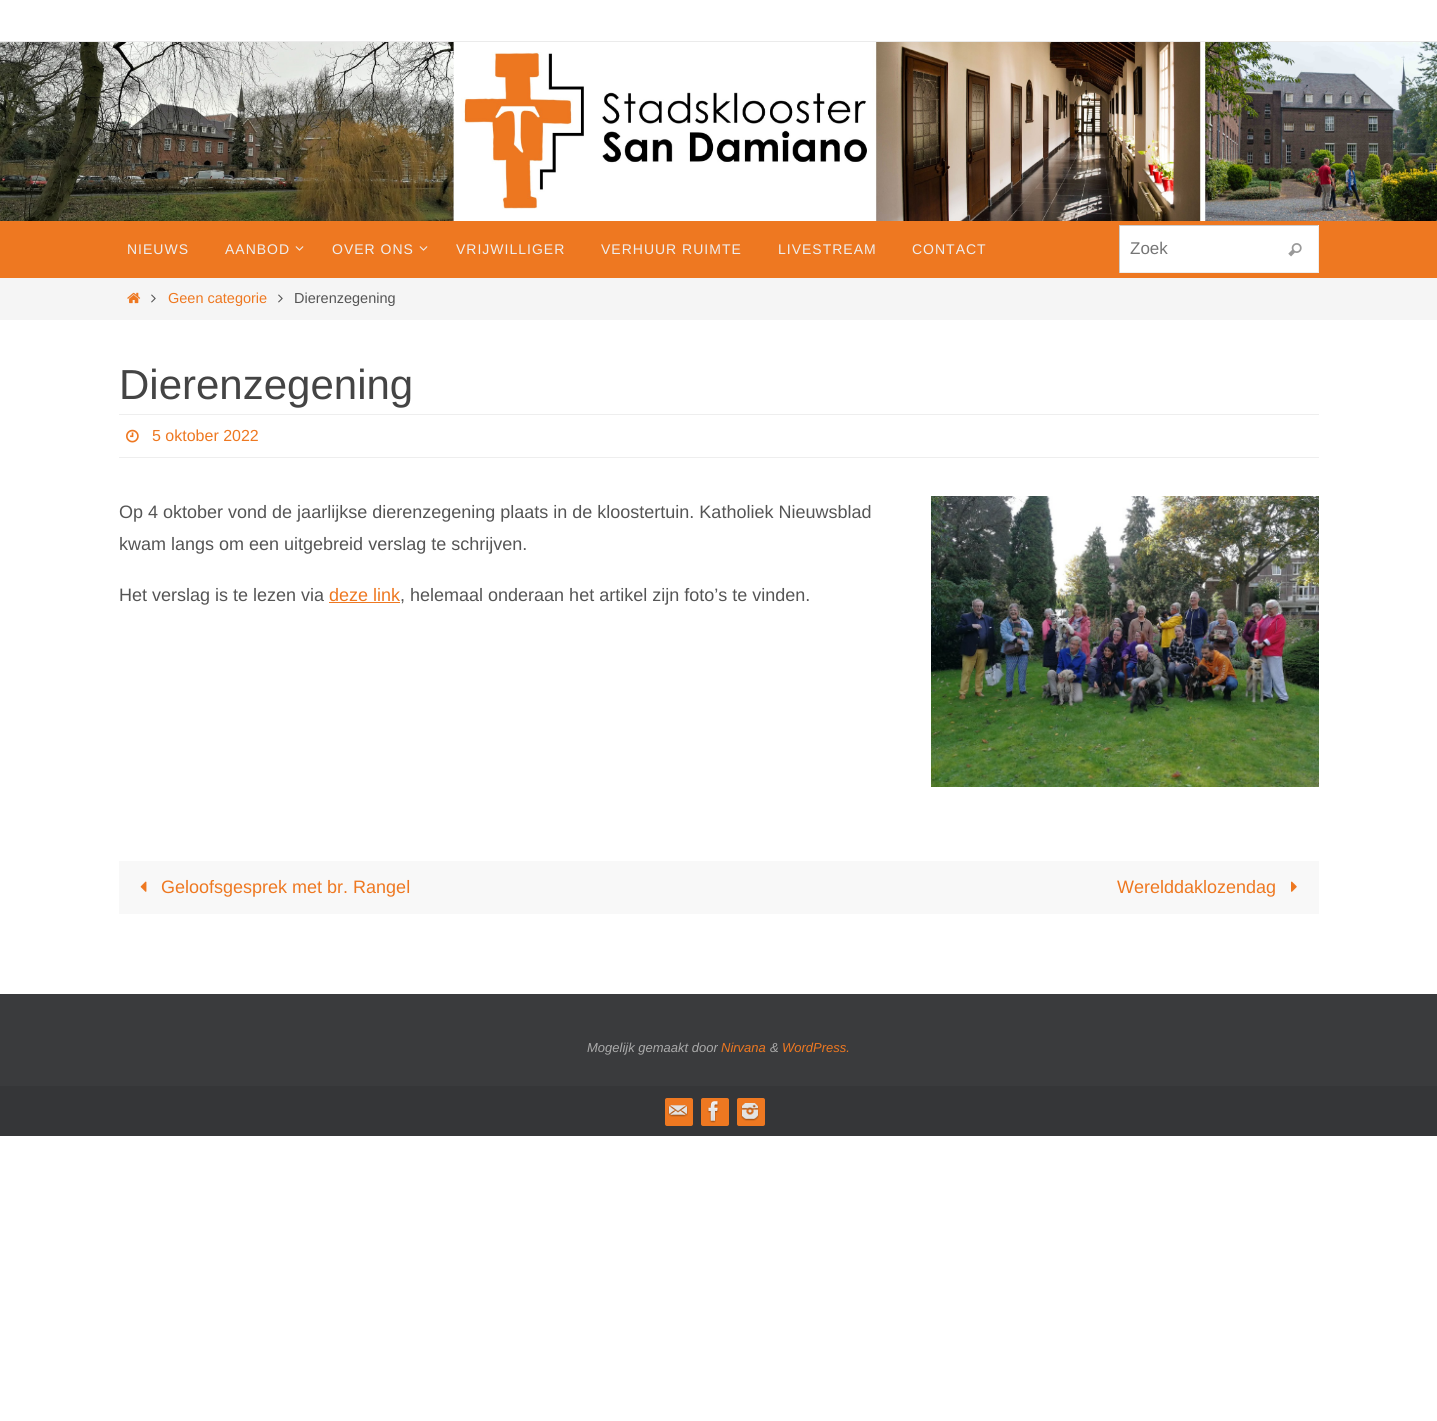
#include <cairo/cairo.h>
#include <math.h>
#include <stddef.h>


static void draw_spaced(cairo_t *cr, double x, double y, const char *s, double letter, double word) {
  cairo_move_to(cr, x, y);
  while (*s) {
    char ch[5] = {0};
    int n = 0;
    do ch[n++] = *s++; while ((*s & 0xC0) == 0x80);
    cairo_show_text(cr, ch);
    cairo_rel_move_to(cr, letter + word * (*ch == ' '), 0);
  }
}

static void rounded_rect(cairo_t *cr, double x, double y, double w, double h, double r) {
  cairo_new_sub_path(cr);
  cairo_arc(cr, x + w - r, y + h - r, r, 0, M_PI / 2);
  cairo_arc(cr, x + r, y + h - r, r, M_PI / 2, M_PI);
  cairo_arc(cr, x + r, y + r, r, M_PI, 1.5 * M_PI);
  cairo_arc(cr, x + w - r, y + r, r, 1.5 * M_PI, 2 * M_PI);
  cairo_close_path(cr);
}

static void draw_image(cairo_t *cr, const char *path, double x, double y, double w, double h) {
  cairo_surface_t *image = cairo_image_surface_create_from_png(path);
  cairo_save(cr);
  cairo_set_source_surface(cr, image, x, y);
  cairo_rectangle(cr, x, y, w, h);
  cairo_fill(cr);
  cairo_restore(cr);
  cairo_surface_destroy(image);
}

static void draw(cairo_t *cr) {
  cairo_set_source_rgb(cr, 1, 1, 1);
  cairo_paint(cr);
  cairo_set_source_rgb(cr, 235 / 255.0, 235 / 255.0, 235 / 255.0);
  cairo_rectangle(cr, 0, 41, 1437, 1);
  cairo_fill(cr);
  draw_image(cr, "images/1.png", 0, 42, 1437, 179);
  cairo_set_source_rgb(cr, 238 / 255.0, 120 / 255.0, 33 / 255.0);
  cairo_rectangle(cr, 0, 221, 1437, 57);
  cairo_fill(cr);
  draw_image(cr, "images/2.png", 295, 246, 9, 5);
  draw_image(cr, "images/2.png", 419, 246, 9, 5);
  cairo_set_source_rgb(cr, 1, 1, 1);
  cairo_rectangle(cr, 1120, 226, 198, 46);
  cairo_fill(cr);
  cairo_set_source_rgb(cr, 204 / 255.0, 204 / 255.0, 204 / 255.0);
  cairo_rectangle(cr, 1119, 225, 200, 1);
  cairo_fill(cr);
  cairo_set_source_rgb(cr, 238 / 255.0, 238 / 255.0, 238 / 255.0);
  cairo_rectangle(cr, 1318, 225, 1, 48);
  cairo_fill(cr);
  cairo_rectangle(cr, 1119, 272, 200, 1);
  cairo_fill(cr);
  cairo_set_source_rgb(cr, 204 / 255.0, 204 / 255.0, 204 / 255.0);
  cairo_rectangle(cr, 1119, 225, 1, 48);
  cairo_fill(cr);
  draw_image(cr, "images/3.png", 1288, 243, 14, 14);
  cairo_set_source_rgb(cr, 245 / 255.0, 245 / 255.0, 245 / 255.0);
  cairo_rectangle(cr, 0, 278, 1437, 42);
  cairo_fill(cr);
  draw_image(cr, "images/4.png", 127, 292, 14, 12);
  draw_image(cr, "images/5.png", 151, 294, 5, 9);
  draw_image(cr, "images/5.png", 278, 294, 5, 9);
  cairo_set_source_rgb(cr, 238 / 255.0, 238 / 255.0, 238 / 255.0);
  cairo_rectangle(cr, 119, 414, 1200, 1);
  cairo_fill(cr);
  cairo_rectangle(cr, 119, 457, 1200, 1);
  cairo_fill(cr);
  draw_image(cr, "images/6.png", 126, 429, 13, 14);
  cairo_set_source_rgb(cr, 238 / 255.0, 120 / 255.0, 33 / 255.0);
  cairo_rectangle(cr, 329, 602, 71, 1);
  cairo_fill(cr);
  draw_image(cr, "images/7.png", 931, 496, 388, 291);
  cairo_set_source_rgb(cr, 248 / 255.0, 248 / 255.0, 248 / 255.0);
  cairo_rectangle(cr, 119, 861, 1200, 53);
  cairo_fill(cr);
  draw_image(cr, "images/8.png", 140, 881, 7, 11);
  draw_image(cr, "images/9.png", 1291, 881, 6, 11);
  cairo_set_source_rgb(cr, 58 / 255.0, 59 / 255.0, 61 / 255.0);
  cairo_rectangle(cr, 0, 994, 1437, 92);
  cairo_fill(cr);
  cairo_set_source_rgb(cr, 53 / 255.0, 54 / 255.0, 56 / 255.0);
  cairo_rectangle(cr, 0, 1086, 1437, 50);
  cairo_fill(cr);
  cairo_set_source_rgb(cr, 238 / 255.0, 120 / 255.0, 33 / 255.0);
  rounded_rect(cr, 665, 1098, 28, 28, 2);
  cairo_fill(cr);
  draw_image(cr, "images/10.png", 668, 1105, 20, 12);
  rounded_rect(cr, 701, 1098, 28, 28, 2);
  cairo_fill(cr);
  draw_image(cr, "images/11.png", 707, 1101, 12, 22);
  rounded_rect(cr, 737, 1098, 28, 28, 2);
  cairo_fill(cr);
  draw_image(cr, "images/12.png", 741, 1103, 18, 18);
  cairo_select_font_face(cr, "Liberation Sans", CAIRO_FONT_SLANT_NORMAL, CAIRO_FONT_WEIGHT_NORMAL);
  cairo_set_font_size(cr, 14);
  cairo_set_source_rgb(cr, 238 / 255.0, 238 / 255.0, 238 / 255.0);
  draw_spaced(cr, 127, 254, "NIEUWS", 1, 0);
  draw_spaced(cr, 225, 254, "AANBOD", 1, 0);
  draw_spaced(cr, 332, 254, "OVER ONS", 1, 0);
  draw_spaced(cr, 456, 254, "VRIJWILLIGER", 1, 0);
  draw_spaced(cr, 601, 254, "VERHUUR RUIMTE", 1, 0);
  draw_spaced(cr, 778, 254, "LIVESTREAM", 1, 0);
  draw_spaced(cr, 912, 254, "CONTACT", 1, 0);
  cairo_set_font_size(cr, 17);
  cairo_set_source_rgb(cr, 117 / 255.0, 117 / 255.0, 117 / 255.0);
  cairo_move_to(cr, 1130, 254);
  cairo_show_text(cr, "Zoek");
  cairo_set_font_size(cr, 14.5);
  cairo_set_source_rgb(cr, 238 / 255.0, 120 / 255.0, 33 / 255.0);
  cairo_move_to(cr, 168, 303);
  cairo_show_text(cr, "Geen categorie");
  cairo_set_source_rgb(cr, 85 / 255.0, 85 / 255.0, 85 / 255.0);
  cairo_move_to(cr, 294, 303);
  cairo_show_text(cr, "Dierenzegening");
  cairo_set_font_size(cr, 42);
  cairo_set_source_rgb(cr, 68 / 255.0, 68 / 255.0, 68 / 255.0);
  cairo_move_to(cr, 119, 399);
  cairo_show_text(cr, "Dierenzegening");
  cairo_set_font_size(cr, 16);
  cairo_set_source_rgb(cr, 238 / 255.0, 120 / 255.0, 33 / 255.0);
  cairo_move_to(cr, 152, 441);
  cairo_show_text(cr, "5 oktober 2022");
  cairo_set_font_size(cr, 18);
  cairo_set_source_rgb(cr, 85 / 255.0, 85 / 255.0, 85 / 255.0);
  cairo_move_to(cr, 119, 518);
  cairo_show_text(cr, "Op 4 oktober vond de jaarlijkse dierenzegening plaats in de kloostertuin. Katholiek Nieuwsblad");
  cairo_move_to(cr, 119, 550);
  cairo_show_text(cr, "kwam langs om een uitgebreid verslag te schrijven.");
  cairo_move_to(cr, 119, 601);
  cairo_show_text(cr, "Het verslag is te lezen via");
  cairo_set_source_rgb(cr, 238 / 255.0, 120 / 255.0, 33 / 255.0);
  cairo_move_to(cr, 329, 601);
  cairo_show_text(cr, "deze link");
  cairo_set_source_rgb(cr, 85 / 255.0, 85 / 255.0, 85 / 255.0);
  cairo_move_to(cr, 400, 601);
  cairo_show_text(cr, ", helemaal onderaan het artikel zijn foto’s te vinden.");
  cairo_set_source_rgb(cr, 238 / 255.0, 120 / 255.0, 33 / 255.0);
  cairo_move_to(cr, 161, 893);
  cairo_show_text(cr, "Geloofsgesprek met br. Rangel");
  cairo_move_to(cr, 1117, 893);
  cairo_show_text(cr, "Werelddaklozendag");
  cairo_select_font_face(cr, "Liberation Sans", CAIRO_FONT_SLANT_ITALIC, CAIRO_FONT_WEIGHT_NORMAL);
  cairo_set_font_size(cr, 13);
  cairo_set_source_rgb(cr, 170 / 255.0, 170 / 255.0, 170 / 255.0);
  cairo_move_to(cr, 587, 1052);
  cairo_show_text(cr, "Mogelijk gemaakt door");
  cairo_set_source_rgb(cr, 238 / 255.0, 120 / 255.0, 33 / 255.0);
  cairo_move_to(cr, 721, 1052);
  cairo_show_text(cr, "Nirvana");
  cairo_set_source_rgb(cr, 170 / 255.0, 170 / 255.0, 170 / 255.0);
  cairo_move_to(cr, 770, 1052);
  cairo_show_text(cr, "&");
  cairo_set_source_rgb(cr, 238 / 255.0, 120 / 255.0, 33 / 255.0);
  cairo_move_to(cr, 782, 1052);
  cairo_show_text(cr, "WordPress.");
}

int main(void) {
  cairo_surface_t *surface = cairo_image_surface_create(CAIRO_FORMAT_RGB24, 1437, 1421);
  cairo_t *cr = cairo_create(surface);
  cairo_font_options_t *options = cairo_font_options_create();
  cairo_font_options_set_hint_metrics(options, CAIRO_HINT_METRICS_OFF);
  cairo_font_options_set_hint_style(options, CAIRO_HINT_STYLE_NONE);
  cairo_set_font_options(cr, options);
  cairo_set_miter_limit(cr, 4);
  draw(cr);
  cairo_surface_write_to_png(surface, "out.png");
  cairo_font_options_destroy(options);
  cairo_destroy(cr);
  cairo_surface_destroy(surface);
  return 0;
}
